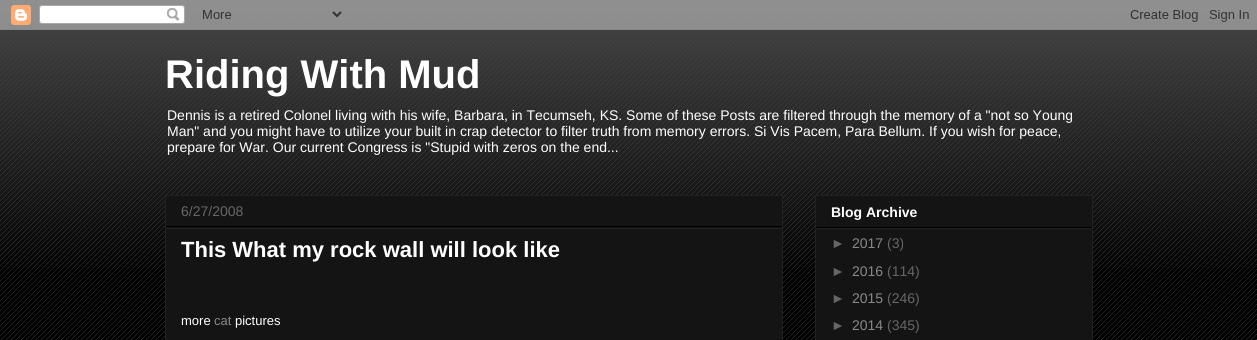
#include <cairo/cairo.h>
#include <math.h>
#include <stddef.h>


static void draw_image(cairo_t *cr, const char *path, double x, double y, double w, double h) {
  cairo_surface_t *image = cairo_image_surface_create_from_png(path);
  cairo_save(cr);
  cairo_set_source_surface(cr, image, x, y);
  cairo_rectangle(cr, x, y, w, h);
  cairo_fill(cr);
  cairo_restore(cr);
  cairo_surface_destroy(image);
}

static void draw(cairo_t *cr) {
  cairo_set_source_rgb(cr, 0, 0, 0);
  cairo_paint(cr);
  draw_image(cr, "images/1.png", 0, 13, 1257, 327);
  draw_image(cr, "images/2.png", 0, 0, 1257, 268);
  draw_image(cr, "images/3.png", 0, 0, 1257, 30);
  cairo_set_source_rgb(cr, 20 / 255.0, 20 / 255.0, 20 / 255.0);
  cairo_rectangle(cr, 165.5, 195.5, 617, 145);
  cairo_fill_preserve(cr);
  cairo_set_source_rgb(cr, 34 / 255.0, 34 / 255.0, 34 / 255.0);
  cairo_set_line_width(cr, 1);
  cairo_stroke(cr);
  cairo_set_source_rgb(cr, 0, 0, 0);
  cairo_rectangle(cr, 166, 226, 616, 1);
  cairo_fill(cr);
  cairo_set_source_rgb(cr, 34 / 255.0, 34 / 255.0, 34 / 255.0);
  cairo_rectangle(cr, 166, 228, 616, 1);
  cairo_fill(cr);
  cairo_set_source_rgb(cr, 20 / 255.0, 20 / 255.0, 20 / 255.0);
  cairo_rectangle(cr, 815.5, 195.5, 277, 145);
  cairo_fill_preserve(cr);
  cairo_set_source_rgb(cr, 34 / 255.0, 34 / 255.0, 34 / 255.0);
  cairo_stroke(cr);
  cairo_set_source_rgb(cr, 0, 0, 0);
  cairo_rectangle(cr, 816, 227, 276, 1);
  cairo_fill(cr);
  cairo_set_source_rgb(cr, 34 / 255.0, 34 / 255.0, 34 / 255.0);
  cairo_rectangle(cr, 816, 228, 276, 1);
  cairo_fill(cr);
  cairo_select_font_face(cr, "Liberation Sans", CAIRO_FONT_SLANT_NORMAL, CAIRO_FONT_WEIGHT_BOLD);
  cairo_set_font_size(cr, 40);
  cairo_set_source_rgb(cr, 1, 1, 1);
  cairo_move_to(cr, 165, 88);
  cairo_show_text(cr, "Riding With Mud");
  cairo_select_font_face(cr, "Liberation Sans", CAIRO_FONT_SLANT_NORMAL, CAIRO_FONT_WEIGHT_NORMAL);
  cairo_set_font_size(cr, 14);
  cairo_move_to(cr, 167, 120);
  cairo_show_text(cr, "Dennis is a retired Colonel living with his wife, Barbara, in Tecumseh, KS. Some of these Posts are filtered through the memory of a \"not so Young");
  cairo_move_to(cr, 167, 136);
  cairo_show_text(cr, "Man\" and you might have to utilize your built in crap detector to filter truth from memory errors. Si Vis Pacem, Para Bellum. If you wish for peace,");
  cairo_move_to(cr, 167, 152);
  cairo_show_text(cr, "prepare for War. Our current Congress is \"Stupid with zeros on the end...");
  cairo_set_source_rgb(cr, 102 / 255.0, 102 / 255.0, 102 / 255.0);
  cairo_move_to(cr, 181, 216);
  cairo_show_text(cr, "6/27/2008");
  cairo_select_font_face(cr, "Liberation Sans", CAIRO_FONT_SLANT_NORMAL, CAIRO_FONT_WEIGHT_BOLD);
  cairo_set_font_size(cr, 22);
  cairo_set_source_rgb(cr, 1, 1, 1);
  cairo_move_to(cr, 181, 257);
  cairo_show_text(cr, "This What my rock wall will look like");
  cairo_select_font_face(cr, "Liberation Sans", CAIRO_FONT_SLANT_NORMAL, CAIRO_FONT_WEIGHT_NORMAL);
  cairo_set_font_size(cr, 13);
  cairo_move_to(cr, 181, 325);
  cairo_show_text(cr, "more");
  cairo_set_source_rgb(cr, 136 / 255.0, 136 / 255.0, 136 / 255.0);
  cairo_move_to(cr, 214, 325);
  cairo_show_text(cr, "cat");
  cairo_set_source_rgb(cr, 1, 1, 1);
  cairo_move_to(cr, 235, 325);
  cairo_show_text(cr, "pictures");
  cairo_select_font_face(cr, "Liberation Sans", CAIRO_FONT_SLANT_NORMAL, CAIRO_FONT_WEIGHT_BOLD);
  cairo_set_font_size(cr, 14);
  cairo_move_to(cr, 831, 217);
  cairo_show_text(cr, "Blog Archive");
  cairo_select_font_face(cr, "Liberation Sans", CAIRO_FONT_SLANT_NORMAL, CAIRO_FONT_WEIGHT_NORMAL);
  cairo_set_source_rgb(cr, 102 / 255.0, 102 / 255.0, 102 / 255.0);
  cairo_move_to(cr, 831, 248);
  cairo_show_text(cr, "►");
  cairo_set_source_rgb(cr, 136 / 255.0, 136 / 255.0, 136 / 255.0);
  cairo_move_to(cr, 852, 248);
  cairo_show_text(cr, "2017");
  cairo_set_source_rgb(cr, 102 / 255.0, 102 / 255.0, 102 / 255.0);
  cairo_move_to(cr, 887, 248);
  cairo_show_text(cr, "(3)");
  cairo_move_to(cr, 831, 276);
  cairo_show_text(cr, "►");
  cairo_set_source_rgb(cr, 136 / 255.0, 136 / 255.0, 136 / 255.0);
  cairo_move_to(cr, 852, 276);
  cairo_show_text(cr, "2016");
  cairo_set_source_rgb(cr, 102 / 255.0, 102 / 255.0, 102 / 255.0);
  cairo_move_to(cr, 887, 276);
  cairo_show_text(cr, "(114)");
  cairo_move_to(cr, 831, 303);
  cairo_show_text(cr, "►");
  cairo_set_source_rgb(cr, 136 / 255.0, 136 / 255.0, 136 / 255.0);
  cairo_move_to(cr, 852, 303);
  cairo_show_text(cr, "2015");
  cairo_set_source_rgb(cr, 102 / 255.0, 102 / 255.0, 102 / 255.0);
  cairo_move_to(cr, 887, 303);
  cairo_show_text(cr, "(246)");
  cairo_move_to(cr, 831, 330);
  cairo_show_text(cr, "►");
  cairo_set_source_rgb(cr, 136 / 255.0, 136 / 255.0, 136 / 255.0);
  cairo_move_to(cr, 852, 330);
  cairo_show_text(cr, "2014");
  cairo_set_source_rgb(cr, 102 / 255.0, 102 / 255.0, 102 / 255.0);
  cairo_move_to(cr, 887, 330);
  cairo_show_text(cr, "(345)");
}

int main(void) {
  cairo_surface_t *surface = cairo_image_surface_create(CAIRO_FORMAT_RGB24, 1257, 340);
  cairo_t *cr = cairo_create(surface);
  cairo_font_options_t *options = cairo_font_options_create();
  cairo_font_options_set_hint_metrics(options, CAIRO_HINT_METRICS_OFF);
  cairo_font_options_set_hint_style(options, CAIRO_HINT_STYLE_NONE);
  cairo_set_font_options(cr, options);
  cairo_set_miter_limit(cr, 4);
  draw(cr);
  cairo_surface_write_to_png(surface, "out.png");
  cairo_font_options_destroy(options);
  cairo_destroy(cr);
  cairo_surface_destroy(surface);
  return 0;
}
